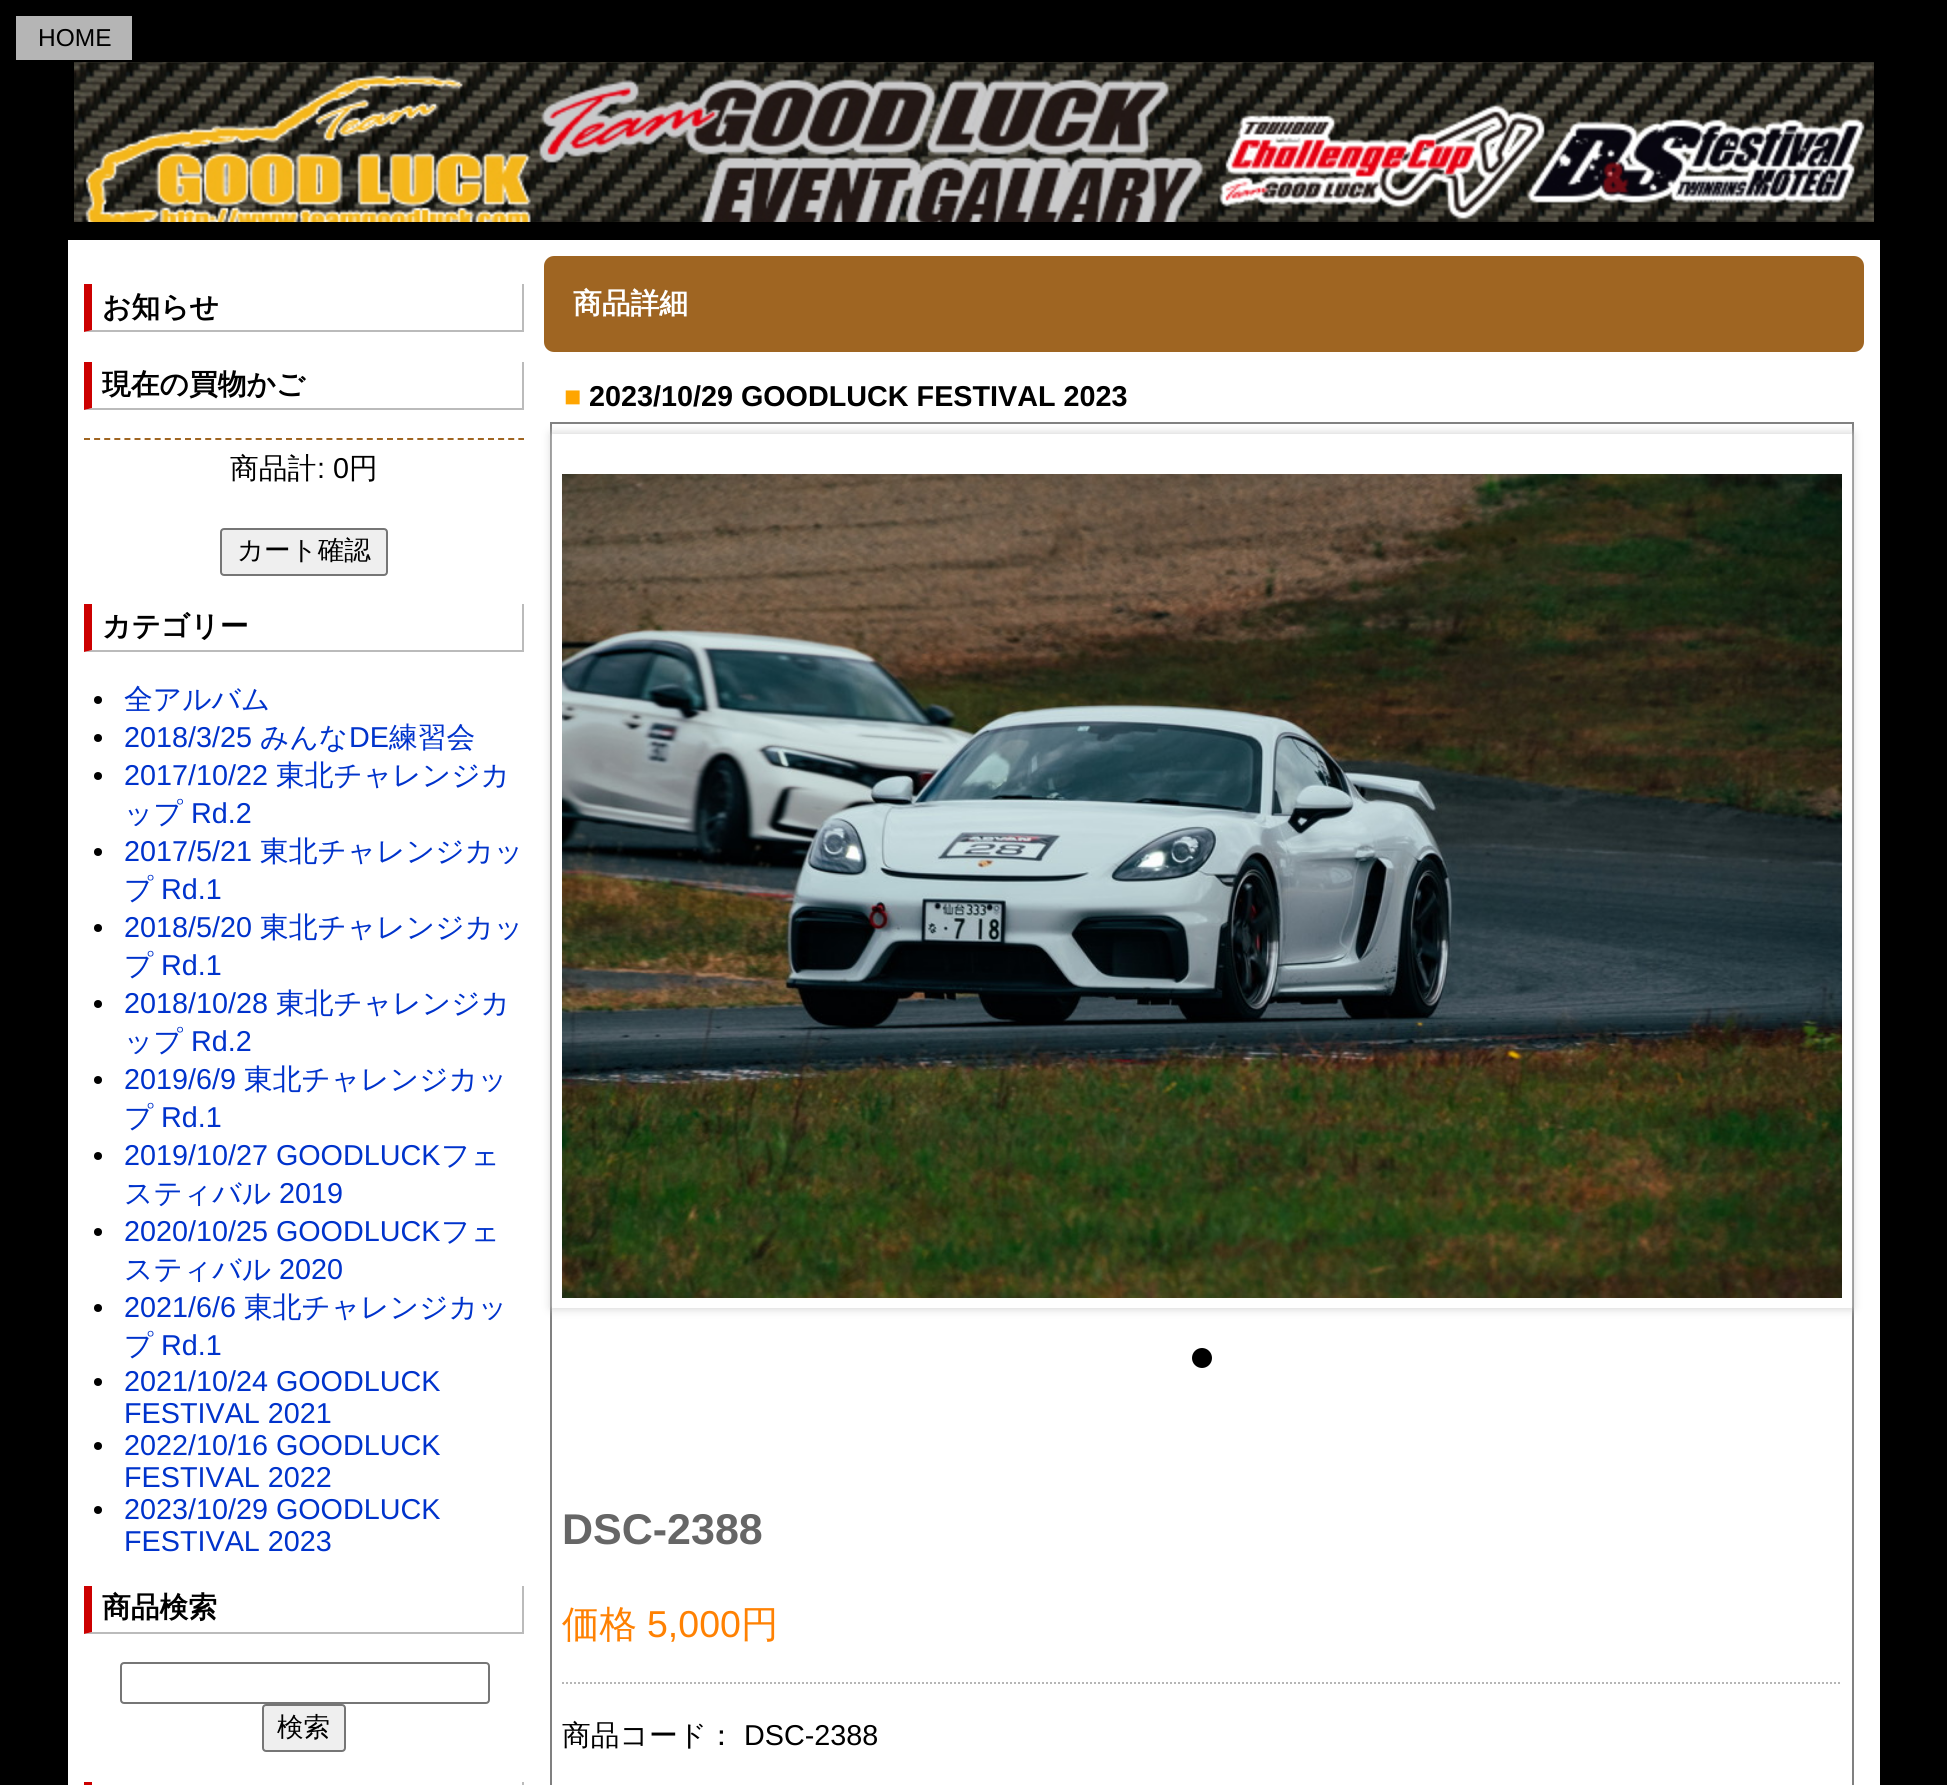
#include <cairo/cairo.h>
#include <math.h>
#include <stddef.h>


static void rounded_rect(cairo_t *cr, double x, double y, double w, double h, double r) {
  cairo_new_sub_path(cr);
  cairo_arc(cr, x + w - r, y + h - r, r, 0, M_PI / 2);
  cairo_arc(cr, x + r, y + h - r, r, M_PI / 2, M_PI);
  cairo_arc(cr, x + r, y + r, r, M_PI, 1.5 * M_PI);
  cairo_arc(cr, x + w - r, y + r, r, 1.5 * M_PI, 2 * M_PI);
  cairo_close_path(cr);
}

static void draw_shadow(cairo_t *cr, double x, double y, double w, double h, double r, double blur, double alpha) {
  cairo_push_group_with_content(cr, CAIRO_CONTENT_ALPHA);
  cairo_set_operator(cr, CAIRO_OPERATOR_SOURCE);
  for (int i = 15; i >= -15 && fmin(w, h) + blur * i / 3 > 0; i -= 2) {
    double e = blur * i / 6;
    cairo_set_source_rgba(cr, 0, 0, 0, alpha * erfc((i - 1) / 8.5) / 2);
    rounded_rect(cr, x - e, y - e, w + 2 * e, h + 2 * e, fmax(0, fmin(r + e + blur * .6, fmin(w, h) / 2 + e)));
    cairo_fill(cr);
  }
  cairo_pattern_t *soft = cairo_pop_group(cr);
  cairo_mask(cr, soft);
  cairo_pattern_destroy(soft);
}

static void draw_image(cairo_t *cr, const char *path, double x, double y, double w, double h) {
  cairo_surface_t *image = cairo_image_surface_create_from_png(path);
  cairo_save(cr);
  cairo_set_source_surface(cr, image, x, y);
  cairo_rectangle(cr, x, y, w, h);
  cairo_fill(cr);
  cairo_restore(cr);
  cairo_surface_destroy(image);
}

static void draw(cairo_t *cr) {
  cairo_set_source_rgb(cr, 0, 0, 0);
  cairo_paint(cr);
  cairo_set_source_rgb(cr, 181 / 255.0, 181 / 255.0, 181 / 255.0);
  cairo_rectangle(cr, 16, 16, 116, 44);
  cairo_fill(cr);
  draw_image(cr, "images/1.png", 74, 62, 1800, 160);
  cairo_set_source_rgb(cr, 1, 1, 1);
  cairo_rectangle(cr, 68, 240, 1812, 1545);
  cairo_fill(cr);
  cairo_set_source_rgb(cr, 187 / 255.0, 187 / 255.0, 187 / 255.0);
  cairo_rectangle(cr, 522, 284, 2, 48);
  cairo_fill(cr);
  cairo_new_path(cr);
  cairo_move_to(cr, 524, 332);
  cairo_line_to(cr, 84, 332);
  cairo_line_to(cr, 92, 330);
  cairo_line_to(cr, 522, 330);
  cairo_close_path(cr);
  cairo_fill(cr);
  cairo_set_source_rgb(cr, 204 / 255.0, 0, 0);
  cairo_new_path(cr);
  cairo_move_to(cr, 84, 332);
  cairo_line_to(cr, 84, 284);
  cairo_line_to(cr, 92, 284);
  cairo_line_to(cr, 92, 330);
  cairo_close_path(cr);
  cairo_fill(cr);
  cairo_set_source_rgb(cr, 187 / 255.0, 187 / 255.0, 187 / 255.0);
  cairo_rectangle(cr, 522, 362, 2, 48);
  cairo_fill(cr);
  cairo_new_path(cr);
  cairo_move_to(cr, 524, 410);
  cairo_line_to(cr, 84, 410);
  cairo_line_to(cr, 92, 408);
  cairo_line_to(cr, 522, 408);
  cairo_close_path(cr);
  cairo_fill(cr);
  cairo_set_source_rgb(cr, 204 / 255.0, 0, 0);
  cairo_new_path(cr);
  cairo_move_to(cr, 84, 410);
  cairo_line_to(cr, 84, 362);
  cairo_line_to(cr, 92, 362);
  cairo_line_to(cr, 92, 408);
  cairo_close_path(cr);
  cairo_fill(cr);
  cairo_new_path(cr);
  cairo_move_to(cr, 84, 439);
  cairo_line_to(cr, 524, 439);
  cairo_set_source_rgb(cr, 159 / 255.0, 101 / 255.0, 34 / 255.0);
  cairo_set_dash(cr, (double[]){6, 4.1}, 2, 0);
  cairo_stroke(cr);
  cairo_set_source_rgb(cr, 239 / 255.0, 239 / 255.0, 239 / 255.0);
  rounded_rect(cr, 221, 529, 166, 46, 3);
  cairo_fill_preserve(cr);
  cairo_set_source_rgb(cr, 118 / 255.0, 118 / 255.0, 118 / 255.0);
  cairo_set_dash(cr, NULL, 0, 0);
  cairo_stroke(cr);
  cairo_set_source_rgb(cr, 187 / 255.0, 187 / 255.0, 187 / 255.0);
  cairo_rectangle(cr, 522, 604, 2, 48);
  cairo_fill(cr);
  cairo_new_path(cr);
  cairo_move_to(cr, 524, 652);
  cairo_line_to(cr, 84, 652);
  cairo_line_to(cr, 92, 650);
  cairo_line_to(cr, 522, 650);
  cairo_close_path(cr);
  cairo_fill(cr);
  cairo_set_source_rgb(cr, 204 / 255.0, 0, 0);
  cairo_new_path(cr);
  cairo_move_to(cr, 84, 652);
  cairo_line_to(cr, 84, 604);
  cairo_line_to(cr, 92, 604);
  cairo_line_to(cr, 92, 650);
  cairo_close_path(cr);
  cairo_fill(cr);
  cairo_set_source_rgb(cr, 0, 0, 0);
  cairo_arc(cr, 98, 700, 4, 0, 2 * M_PI);
  cairo_fill(cr);
  cairo_arc(cr, 98, 738, 4, 0, 2 * M_PI);
  cairo_fill(cr);
  cairo_arc(cr, 98, 776, 4, 0, 2 * M_PI);
  cairo_fill(cr);
  cairo_arc(cr, 98, 852, 4, 0, 2 * M_PI);
  cairo_fill(cr);
  cairo_arc(cr, 98, 928, 4, 0, 2 * M_PI);
  cairo_fill(cr);
  cairo_arc(cr, 98, 1004, 4, 0, 2 * M_PI);
  cairo_fill(cr);
  cairo_arc(cr, 98, 1080, 4, 0, 2 * M_PI);
  cairo_fill(cr);
  cairo_arc(cr, 98, 1156, 4, 0, 2 * M_PI);
  cairo_fill(cr);
  cairo_arc(cr, 98, 1232, 4, 0, 2 * M_PI);
  cairo_fill(cr);
  cairo_arc(cr, 98, 1308, 4, 0, 2 * M_PI);
  cairo_fill(cr);
  cairo_arc(cr, 98, 1382, 4, 0, 2 * M_PI);
  cairo_fill(cr);
  cairo_arc(cr, 98, 1446, 4, 0, 2 * M_PI);
  cairo_fill(cr);
  cairo_arc(cr, 98, 1510, 4, 0, 2 * M_PI);
  cairo_fill(cr);
  cairo_set_source_rgb(cr, 187 / 255.0, 187 / 255.0, 187 / 255.0);
  cairo_rectangle(cr, 522, 1586, 2, 48);
  cairo_fill(cr);
  cairo_new_path(cr);
  cairo_move_to(cr, 524, 1634);
  cairo_line_to(cr, 84, 1634);
  cairo_line_to(cr, 92, 1632);
  cairo_line_to(cr, 522, 1632);
  cairo_close_path(cr);
  cairo_fill(cr);
  cairo_set_source_rgb(cr, 204 / 255.0, 0, 0);
  cairo_new_path(cr);
  cairo_move_to(cr, 84, 1634);
  cairo_line_to(cr, 84, 1586);
  cairo_line_to(cr, 92, 1586);
  cairo_line_to(cr, 92, 1632);
  cairo_close_path(cr);
  cairo_fill(cr);
  rounded_rect(cr, 121, 1663, 368, 40, 3);
  cairo_set_source_rgb(cr, 118 / 255.0, 118 / 255.0, 118 / 255.0);
  cairo_stroke(cr);
  cairo_set_source_rgb(cr, 239 / 255.0, 239 / 255.0, 239 / 255.0);
  rounded_rect(cr, 263, 1705, 82, 46, 3);
  cairo_fill_preserve(cr);
  cairo_set_source_rgb(cr, 118 / 255.0, 118 / 255.0, 118 / 255.0);
  cairo_stroke(cr);
  cairo_set_source_rgb(cr, 187 / 255.0, 187 / 255.0, 187 / 255.0);
  cairo_rectangle(cr, 522, 1782, 2, 3);
  cairo_fill(cr);
  cairo_set_source_rgb(cr, 204 / 255.0, 0, 0);
  cairo_new_path(cr);
  cairo_move_to(cr, 84, 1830);
  cairo_line_to(cr, 84, 1782);
  cairo_line_to(cr, 92, 1782);
  cairo_line_to(cr, 92, 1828);
  cairo_close_path(cr);
  cairo_fill(cr);
  cairo_set_source_rgb(cr, 159 / 255.0, 101 / 255.0, 34 / 255.0);
  rounded_rect(cr, 544, 256, 1320, 96, 10);
  cairo_fill(cr);
  cairo_rectangle(cr, 551, 423, 1302, 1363);
  cairo_set_source_rgb(cr, 128 / 255.0, 128 / 255.0, 128 / 255.0);
  cairo_stroke(cr);
  cairo_save(cr);
  cairo_set_fill_rule(cr, CAIRO_FILL_RULE_EVEN_ODD);
  cairo_new_path(cr);
  cairo_move_to(cr, 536, 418);
  cairo_line_to(cr, 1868, 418);
  cairo_line_to(cr, 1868, 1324);
  cairo_line_to(cr, 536, 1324);
  cairo_close_path(cr);
  cairo_move_to(cr, 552, 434);
  cairo_line_to(cr, 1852, 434);
  cairo_line_to(cr, 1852, 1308);
  cairo_line_to(cr, 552, 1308);
  cairo_close_path(cr);
  cairo_clip(cr);
  cairo_set_source_rgb(cr, 204 / 255.0, 204 / 255.0, 204 / 255.0);
  draw_shadow(cr, 552, 434, 1300, 874, 0, 5, 1);
  cairo_restore(cr);
  draw_image(cr, "images/2.png", 562, 474, 1280, 824);
  cairo_set_source_rgb(cr, 0, 0, 0);
  cairo_arc(cr, 1202, 1358, 10, 0, 2 * M_PI);
  cairo_fill(cr);
  cairo_new_path(cr);
  cairo_move_to(cr, 562, 1683);
  cairo_line_to(cr, 1842, 1683);
  cairo_set_source_rgb(cr, 182 / 255.0, 182 / 255.0, 182 / 255.0);
  cairo_set_dash(cr, (double[]){2, 2}, 2, 0);
  cairo_stroke(cr);
  cairo_select_font_face(cr, "Liberation Sans", CAIRO_FONT_SLANT_NORMAL, CAIRO_FONT_WEIGHT_NORMAL);
  cairo_set_font_size(cr, 24.5);
  cairo_set_source_rgb(cr, 0, 0, 0);
  cairo_move_to(cr, 38, 46);
  cairo_show_text(cr, "HOME");
  cairo_select_font_face(cr, "WenQuanYi Zen Hei", CAIRO_FONT_SLANT_NORMAL, CAIRO_FONT_WEIGHT_BOLD);
  cairo_set_font_size(cr, 28.75);
  cairo_move_to(cr, 102, 317);
  cairo_show_text(cr, "お知らせ");
  cairo_move_to(cr, 102, 394);
  cairo_show_text(cr, "現在の買物かご");
  cairo_select_font_face(cr, "WenQuanYi Zen Hei Medium", CAIRO_FONT_SLANT_NORMAL, CAIRO_FONT_WEIGHT_NORMAL);
  cairo_move_to(cr, 230, 478);
  cairo_show_text(cr, "商品計");
  cairo_select_font_face(cr, "Liberation Sans", CAIRO_FONT_SLANT_NORMAL, CAIRO_FONT_WEIGHT_NORMAL);
  cairo_move_to(cr, 317, 478);
  cairo_show_text(cr, ": 0");
  cairo_select_font_face(cr, "WenQuanYi Zen Hei Medium", CAIRO_FONT_SLANT_NORMAL, CAIRO_FONT_WEIGHT_NORMAL);
  cairo_move_to(cr, 349, 478);
  cairo_show_text(cr, "円");
  cairo_set_font_size(cr, 26.5);
  cairo_move_to(cr, 237, 559);
  cairo_show_text(cr, "カート確認");
  cairo_select_font_face(cr, "WenQuanYi Zen Hei", CAIRO_FONT_SLANT_NORMAL, CAIRO_FONT_WEIGHT_BOLD);
  cairo_set_font_size(cr, 28.75);
  cairo_move_to(cr, 102, 636);
  cairo_show_text(cr, "カテゴリー");
  cairo_select_font_face(cr, "WenQuanYi Zen Hei Medium", CAIRO_FONT_SLANT_NORMAL, CAIRO_FONT_WEIGHT_NORMAL);
  cairo_set_source_rgb(cr, 0, 51 / 255.0, 204 / 255.0);
  cairo_move_to(cr, 124, 709);
  cairo_show_text(cr, "全アルバム");
  cairo_select_font_face(cr, "Liberation Sans", CAIRO_FONT_SLANT_NORMAL, CAIRO_FONT_WEIGHT_NORMAL);
  cairo_move_to(cr, 124, 747);
  cairo_show_text(cr, "2018/3/25");
  cairo_select_font_face(cr, "WenQuanYi Zen Hei Medium", CAIRO_FONT_SLANT_NORMAL, CAIRO_FONT_WEIGHT_NORMAL);
  cairo_move_to(cr, 260, 747);
  cairo_show_text(cr, "みんな");
  cairo_select_font_face(cr, "Liberation Sans", CAIRO_FONT_SLANT_NORMAL, CAIRO_FONT_WEIGHT_NORMAL);
  cairo_move_to(cr, 349, 747);
  cairo_show_text(cr, "DE");
  cairo_select_font_face(cr, "WenQuanYi Zen Hei Medium", CAIRO_FONT_SLANT_NORMAL, CAIRO_FONT_WEIGHT_NORMAL);
  cairo_move_to(cr, 389, 747);
  cairo_show_text(cr, "練習会");
  cairo_select_font_face(cr, "Liberation Sans", CAIRO_FONT_SLANT_NORMAL, CAIRO_FONT_WEIGHT_NORMAL);
  cairo_move_to(cr, 124, 785);
  cairo_show_text(cr, "2017/10/22");
  cairo_select_font_face(cr, "WenQuanYi Zen Hei Medium", CAIRO_FONT_SLANT_NORMAL, CAIRO_FONT_WEIGHT_NORMAL);
  cairo_move_to(cr, 276, 785);
  cairo_show_text(cr, "東北チャレンジカ");
  cairo_move_to(cr, 124, 823);
  cairo_show_text(cr, "ップ");
  cairo_select_font_face(cr, "Liberation Sans", CAIRO_FONT_SLANT_NORMAL, CAIRO_FONT_WEIGHT_NORMAL);
  cairo_move_to(cr, 191, 823);
  cairo_show_text(cr, "Rd.2");
  cairo_move_to(cr, 124, 861);
  cairo_show_text(cr, "2017/5/21");
  cairo_select_font_face(cr, "WenQuanYi Zen Hei Medium", CAIRO_FONT_SLANT_NORMAL, CAIRO_FONT_WEIGHT_NORMAL);
  cairo_move_to(cr, 260, 861);
  cairo_show_text(cr, "東北チャレンジカッ");
  cairo_move_to(cr, 124, 899);
  cairo_show_text(cr, "プ");
  cairo_select_font_face(cr, "Liberation Sans", CAIRO_FONT_SLANT_NORMAL, CAIRO_FONT_WEIGHT_NORMAL);
  cairo_move_to(cr, 161, 899);
  cairo_show_text(cr, "Rd.1");
  cairo_move_to(cr, 124, 937);
  cairo_show_text(cr, "2018/5/20");
  cairo_select_font_face(cr, "WenQuanYi Zen Hei Medium", CAIRO_FONT_SLANT_NORMAL, CAIRO_FONT_WEIGHT_NORMAL);
  cairo_move_to(cr, 260, 937);
  cairo_show_text(cr, "東北チャレンジカッ");
  cairo_move_to(cr, 124, 975);
  cairo_show_text(cr, "プ");
  cairo_select_font_face(cr, "Liberation Sans", CAIRO_FONT_SLANT_NORMAL, CAIRO_FONT_WEIGHT_NORMAL);
  cairo_move_to(cr, 161, 975);
  cairo_show_text(cr, "Rd.1");
  cairo_move_to(cr, 124, 1013);
  cairo_show_text(cr, "2018/10/28");
  cairo_select_font_face(cr, "WenQuanYi Zen Hei Medium", CAIRO_FONT_SLANT_NORMAL, CAIRO_FONT_WEIGHT_NORMAL);
  cairo_move_to(cr, 276, 1013);
  cairo_show_text(cr, "東北チャレンジカ");
  cairo_move_to(cr, 124, 1051);
  cairo_show_text(cr, "ップ");
  cairo_select_font_face(cr, "Liberation Sans", CAIRO_FONT_SLANT_NORMAL, CAIRO_FONT_WEIGHT_NORMAL);
  cairo_move_to(cr, 191, 1051);
  cairo_show_text(cr, "Rd.2");
  cairo_move_to(cr, 124, 1089);
  cairo_show_text(cr, "2019/6/9");
  cairo_select_font_face(cr, "WenQuanYi Zen Hei Medium", CAIRO_FONT_SLANT_NORMAL, CAIRO_FONT_WEIGHT_NORMAL);
  cairo_move_to(cr, 244, 1089);
  cairo_show_text(cr, "東北チャレンジカッ");
  cairo_move_to(cr, 124, 1127);
  cairo_show_text(cr, "プ");
  cairo_select_font_face(cr, "Liberation Sans", CAIRO_FONT_SLANT_NORMAL, CAIRO_FONT_WEIGHT_NORMAL);
  cairo_move_to(cr, 161, 1127);
  cairo_show_text(cr, "Rd.1");
  cairo_move_to(cr, 124, 1165);
  cairo_show_text(cr, "2019/10/27 GOODLUCK");
  cairo_select_font_face(cr, "WenQuanYi Zen Hei Medium", CAIRO_FONT_SLANT_NORMAL, CAIRO_FONT_WEIGHT_NORMAL);
  cairo_move_to(cr, 441, 1165);
  cairo_show_text(cr, "フェ");
  cairo_move_to(cr, 124, 1203);
  cairo_show_text(cr, "スティバル");
  cairo_select_font_face(cr, "Liberation Sans", CAIRO_FONT_SLANT_NORMAL, CAIRO_FONT_WEIGHT_NORMAL);
  cairo_move_to(cr, 279, 1203);
  cairo_show_text(cr, "2019");
  cairo_move_to(cr, 124, 1241);
  cairo_show_text(cr, "2020/10/25 GOODLUCK");
  cairo_select_font_face(cr, "WenQuanYi Zen Hei Medium", CAIRO_FONT_SLANT_NORMAL, CAIRO_FONT_WEIGHT_NORMAL);
  cairo_move_to(cr, 441, 1241);
  cairo_show_text(cr, "フェ");
  cairo_move_to(cr, 124, 1279);
  cairo_show_text(cr, "スティバル");
  cairo_select_font_face(cr, "Liberation Sans", CAIRO_FONT_SLANT_NORMAL, CAIRO_FONT_WEIGHT_NORMAL);
  cairo_move_to(cr, 279, 1279);
  cairo_show_text(cr, "2020");
  cairo_move_to(cr, 124, 1317);
  cairo_show_text(cr, "2021/6/6");
  cairo_select_font_face(cr, "WenQuanYi Zen Hei Medium", CAIRO_FONT_SLANT_NORMAL, CAIRO_FONT_WEIGHT_NORMAL);
  cairo_move_to(cr, 244, 1317);
  cairo_show_text(cr, "東北チャレンジカッ");
  cairo_move_to(cr, 124, 1355);
  cairo_show_text(cr, "プ");
  cairo_select_font_face(cr, "Liberation Sans", CAIRO_FONT_SLANT_NORMAL, CAIRO_FONT_WEIGHT_NORMAL);
  cairo_move_to(cr, 161, 1355);
  cairo_show_text(cr, "Rd.1");
  cairo_move_to(cr, 124, 1391);
  cairo_show_text(cr, "2021/10/24 GOODLUCK");
  cairo_move_to(cr, 124, 1423);
  cairo_show_text(cr, "FESTIVAL 2021");
  cairo_move_to(cr, 124, 1455);
  cairo_show_text(cr, "2022/10/16 GOODLUCK");
  cairo_move_to(cr, 124, 1487);
  cairo_show_text(cr, "FESTIVAL 2022");
  cairo_move_to(cr, 124, 1519);
  cairo_show_text(cr, "2023/10/29 GOODLUCK");
  cairo_move_to(cr, 124, 1551);
  cairo_show_text(cr, "FESTIVAL 2023");
  cairo_select_font_face(cr, "WenQuanYi Zen Hei", CAIRO_FONT_SLANT_NORMAL, CAIRO_FONT_WEIGHT_BOLD);
  cairo_set_source_rgb(cr, 0, 0, 0);
  cairo_move_to(cr, 102, 1617);
  cairo_show_text(cr, "商品検索");
  cairo_select_font_face(cr, "WenQuanYi Zen Hei Medium", CAIRO_FONT_SLANT_NORMAL, CAIRO_FONT_WEIGHT_NORMAL);
  cairo_set_font_size(cr, 26.5);
  cairo_move_to(cr, 277, 1736);
  cairo_show_text(cr, "検索");
  cairo_select_font_face(cr, "WenQuanYi Zen Hei", CAIRO_FONT_SLANT_NORMAL, CAIRO_FONT_WEIGHT_BOLD);
  cairo_set_font_size(cr, 28.75);
  cairo_set_source_rgb(cr, 1, 1, 1);
  cairo_move_to(cr, 573, 313);
  cairo_show_text(cr, "商品詳細");
  cairo_select_font_face(cr, "Liberation Sans", CAIRO_FONT_SLANT_NORMAL, CAIRO_FONT_WEIGHT_BOLD);
  cairo_set_source_rgb(cr, 1, 165 / 255.0, 0);
  cairo_move_to(cr, 564, 406);
  cairo_show_text(cr, "■");
  cairo_set_source_rgb(cr, 0, 0, 0);
  cairo_move_to(cr, 589, 406);
  cairo_show_text(cr, "2023/10/29 GOODLUCK FESTIVAL 2023");
  cairo_set_font_size(cr, 43);
  cairo_set_source_rgb(cr, 102 / 255.0, 102 / 255.0, 102 / 255.0);
  cairo_move_to(cr, 562, 1544);
  cairo_show_text(cr, "DSC-2388");
  cairo_select_font_face(cr, "WenQuanYi Zen Hei Medium", CAIRO_FONT_SLANT_NORMAL, CAIRO_FONT_WEIGHT_NORMAL);
  cairo_set_font_size(cr, 37.5);
  cairo_set_source_rgb(cr, 1, 129 / 255.0, 2 / 255.0);
  cairo_move_to(cr, 562, 1637);
  cairo_show_text(cr, "価格");
  cairo_select_font_face(cr, "Liberation Sans", CAIRO_FONT_SLANT_NORMAL, CAIRO_FONT_WEIGHT_NORMAL);
  cairo_move_to(cr, 647, 1637);
  cairo_show_text(cr, "5,000");
  cairo_select_font_face(cr, "WenQuanYi Zen Hei Medium", CAIRO_FONT_SLANT_NORMAL, CAIRO_FONT_WEIGHT_NORMAL);
  cairo_move_to(cr, 741, 1637);
  cairo_show_text(cr, "円");
  cairo_set_font_size(cr, 28.75);
  cairo_set_source_rgb(cr, 0, 0, 0);
  cairo_move_to(cr, 562, 1745);
  cairo_show_text(cr, "商品コード：");
  cairo_select_font_face(cr, "Liberation Sans", CAIRO_FONT_SLANT_NORMAL, CAIRO_FONT_WEIGHT_NORMAL);
  cairo_move_to(cr, 744, 1745);
  cairo_show_text(cr, "DSC-2388");
}

int main(void) {
  cairo_surface_t *surface = cairo_image_surface_create(CAIRO_FORMAT_RGB24, 1947, 1785);
  cairo_t *cr = cairo_create(surface);
  cairo_font_options_t *options = cairo_font_options_create();
  cairo_font_options_set_hint_metrics(options, CAIRO_HINT_METRICS_OFF);
  cairo_font_options_set_hint_style(options, CAIRO_HINT_STYLE_NONE);
  cairo_set_font_options(cr, options);
  cairo_set_miter_limit(cr, 4);
  draw(cr);
  cairo_surface_write_to_png(surface, "out.png");
  cairo_font_options_destroy(options);
  cairo_destroy(cr);
  cairo_surface_destroy(surface);
  return 0;
}
